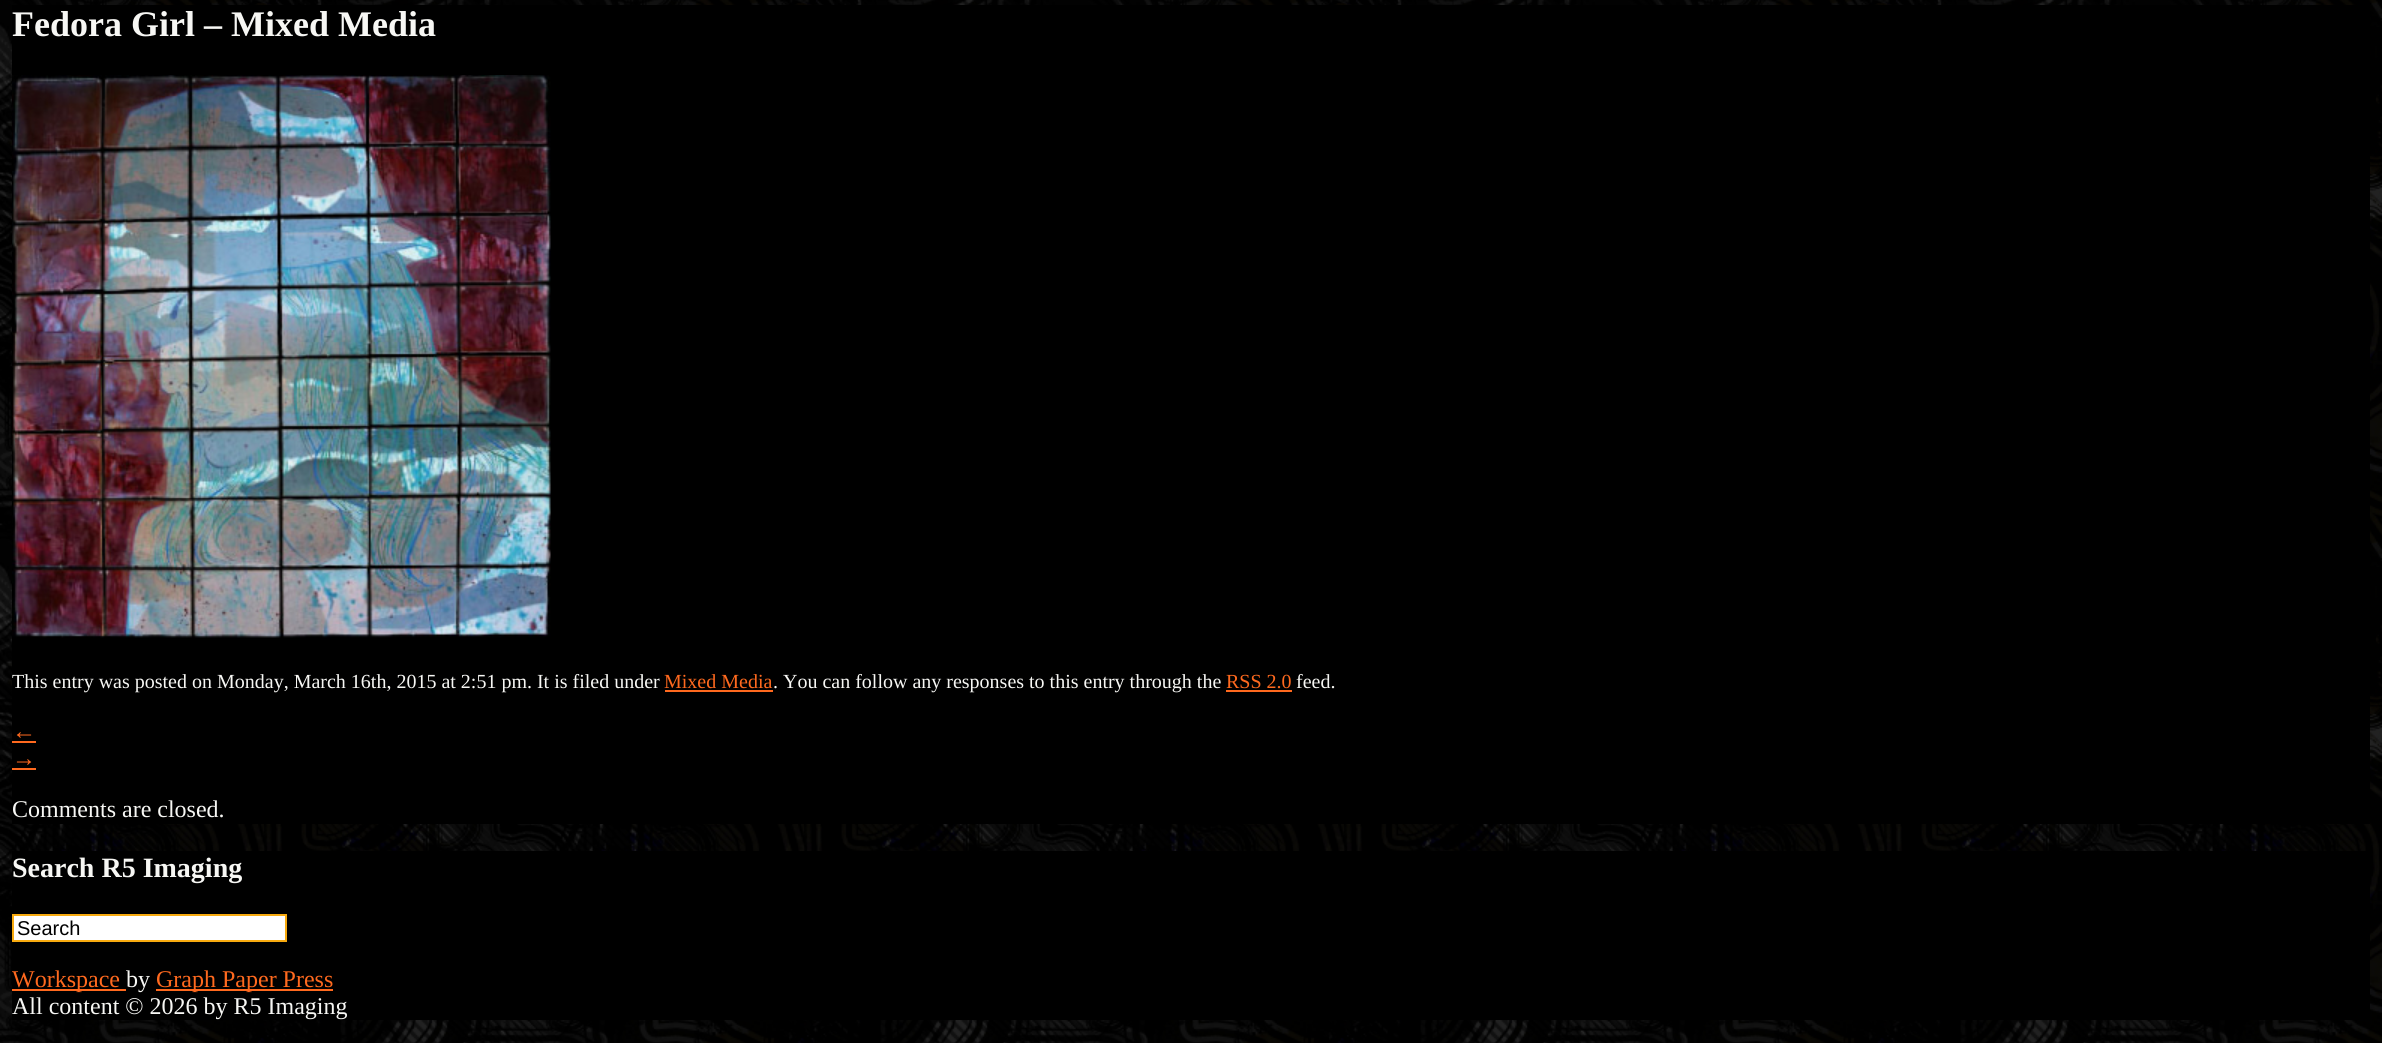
#include <cairo/cairo.h>
#include <math.h>
#include <stddef.h>


static void draw_image(cairo_t *cr, const char *path, double x, double y, double w, double h) {
  cairo_surface_t *image = cairo_image_surface_create_from_png(path);
  cairo_save(cr);
  cairo_set_source_surface(cr, image, x, y);
  cairo_rectangle(cr, x, y, w, h);
  cairo_fill(cr);
  cairo_restore(cr);
  cairo_surface_destroy(image);
}

static void draw(cairo_t *cr) {
  cairo_set_source_rgb(cr, 1, 1, 1);
  cairo_paint(cr);
  draw_image(cr, "images/1.png", 0, 0, 2382, 1043);
  cairo_set_source_rgb(cr, 0, 0, 0);
  cairo_rectangle(cr, 12, 5, 2358, 819);
  cairo_fill(cr);
  draw_image(cr, "images/2.png", 12, 75, 539, 563);
  cairo_set_source_rgb(cr, 1, 105 / 255.0, 30 / 255.0);
  cairo_rectangle(cr, 665, 690, 108, 2);
  cairo_fill(cr);
  cairo_rectangle(cr, 1226, 690, 66, 2);
  cairo_fill(cr);
  cairo_rectangle(cr, 12, 741, 24, 2);
  cairo_fill(cr);
  cairo_rectangle(cr, 12, 768, 24, 2);
  cairo_fill(cr);
  cairo_set_source_rgb(cr, 0, 0, 0);
  cairo_rectangle(cr, 12, 851, 2358, 169);
  cairo_fill(cr);
  cairo_set_source_rgb(cr, 1, 1, 1);
  cairo_rectangle(cr, 13, 915, 273, 26);
  cairo_fill_preserve(cr);
  cairo_set_source_rgb(cr, 247 / 255.0, 170 / 255.0, 15 / 255.0);
  cairo_stroke(cr);
  cairo_set_source_rgb(cr, 1, 105 / 255.0, 30 / 255.0);
  cairo_rectangle(cr, 12, 989, 114, 2);
  cairo_fill(cr);
  cairo_rectangle(cr, 156, 989, 177, 2);
  cairo_fill(cr);
  cairo_select_font_face(cr, "Liberation Serif", CAIRO_FONT_SLANT_NORMAL, CAIRO_FONT_WEIGHT_BOLD);
  cairo_set_font_size(cr, 36);
  cairo_set_source_rgb(cr, 247 / 255.0, 247 / 255.0, 244 / 255.0);
  cairo_move_to(cr, 12, 36);
  cairo_show_text(cr, "Fedora Girl – Mixed Media");
  cairo_select_font_face(cr, "Liberation Serif", CAIRO_FONT_SLANT_NORMAL, CAIRO_FONT_WEIGHT_NORMAL);
  cairo_set_font_size(cr, 20);
  cairo_move_to(cr, 12, 688);
  cairo_show_text(cr, "This entry was posted on Monday, March 16th, 2015 at 2:51 pm. It is filed under");
  cairo_set_source_rgb(cr, 1, 105 / 255.0, 30 / 255.0);
  cairo_move_to(cr, 664, 688);
  cairo_show_text(cr, "Mixed Media");
  cairo_set_source_rgb(cr, 247 / 255.0, 247 / 255.0, 244 / 255.0);
  cairo_move_to(cr, 773, 688);
  cairo_show_text(cr, ". You can follow any responses to this entry through the");
  cairo_set_source_rgb(cr, 1, 105 / 255.0, 30 / 255.0);
  cairo_move_to(cr, 1226, 688);
  cairo_show_text(cr, "RSS 2.0");
  cairo_set_source_rgb(cr, 247 / 255.0, 247 / 255.0, 244 / 255.0);
  cairo_move_to(cr, 1296, 688);
  cairo_show_text(cr, "feed.");
  cairo_set_font_size(cr, 24);
  cairo_set_source_rgb(cr, 1, 105 / 255.0, 30 / 255.0);
  cairo_move_to(cr, 12, 739);
  cairo_show_text(cr, "←");
  cairo_move_to(cr, 12, 766);
  cairo_show_text(cr, "→");
  cairo_set_source_rgb(cr, 247 / 255.0, 247 / 255.0, 244 / 255.0);
  cairo_move_to(cr, 12, 817);
  cairo_show_text(cr, "Comments are closed.");
  cairo_select_font_face(cr, "Liberation Serif", CAIRO_FONT_SLANT_NORMAL, CAIRO_FONT_WEIGHT_BOLD);
  cairo_set_font_size(cr, 28);
  cairo_move_to(cr, 12, 877);
  cairo_show_text(cr, "Search R5 Imaging");
  cairo_select_font_face(cr, "Liberation Sans", CAIRO_FONT_SLANT_NORMAL, CAIRO_FONT_WEIGHT_NORMAL);
  cairo_set_font_size(cr, 20);
  cairo_set_source_rgb(cr, 0, 0, 0);
  cairo_move_to(cr, 17, 935);
  cairo_show_text(cr, "Search");
  cairo_select_font_face(cr, "Liberation Serif", CAIRO_FONT_SLANT_NORMAL, CAIRO_FONT_WEIGHT_NORMAL);
  cairo_set_font_size(cr, 24);
  cairo_set_source_rgb(cr, 1, 105 / 255.0, 30 / 255.0);
  cairo_move_to(cr, 12, 987);
  cairo_show_text(cr, "Workspace");
  cairo_set_source_rgb(cr, 247 / 255.0, 247 / 255.0, 244 / 255.0);
  cairo_move_to(cr, 126, 987);
  cairo_show_text(cr, "by");
  cairo_set_source_rgb(cr, 1, 105 / 255.0, 30 / 255.0);
  cairo_move_to(cr, 156, 987);
  cairo_show_text(cr, "Graph Paper Press");
  cairo_set_source_rgb(cr, 247 / 255.0, 247 / 255.0, 244 / 255.0);
  cairo_move_to(cr, 12, 1014);
  cairo_show_text(cr, "All content © 2026 by R5 Imaging");
}

int main(void) {
  cairo_surface_t *surface = cairo_image_surface_create(CAIRO_FORMAT_RGB24, 2382, 1043);
  cairo_t *cr = cairo_create(surface);
  cairo_font_options_t *options = cairo_font_options_create();
  cairo_font_options_set_hint_metrics(options, CAIRO_HINT_METRICS_OFF);
  cairo_font_options_set_hint_style(options, CAIRO_HINT_STYLE_NONE);
  cairo_set_font_options(cr, options);
  cairo_set_miter_limit(cr, 4);
  draw(cr);
  cairo_surface_write_to_png(surface, "out.png");
  cairo_font_options_destroy(options);
  cairo_destroy(cr);
  cairo_surface_destroy(surface);
  return 0;
}
